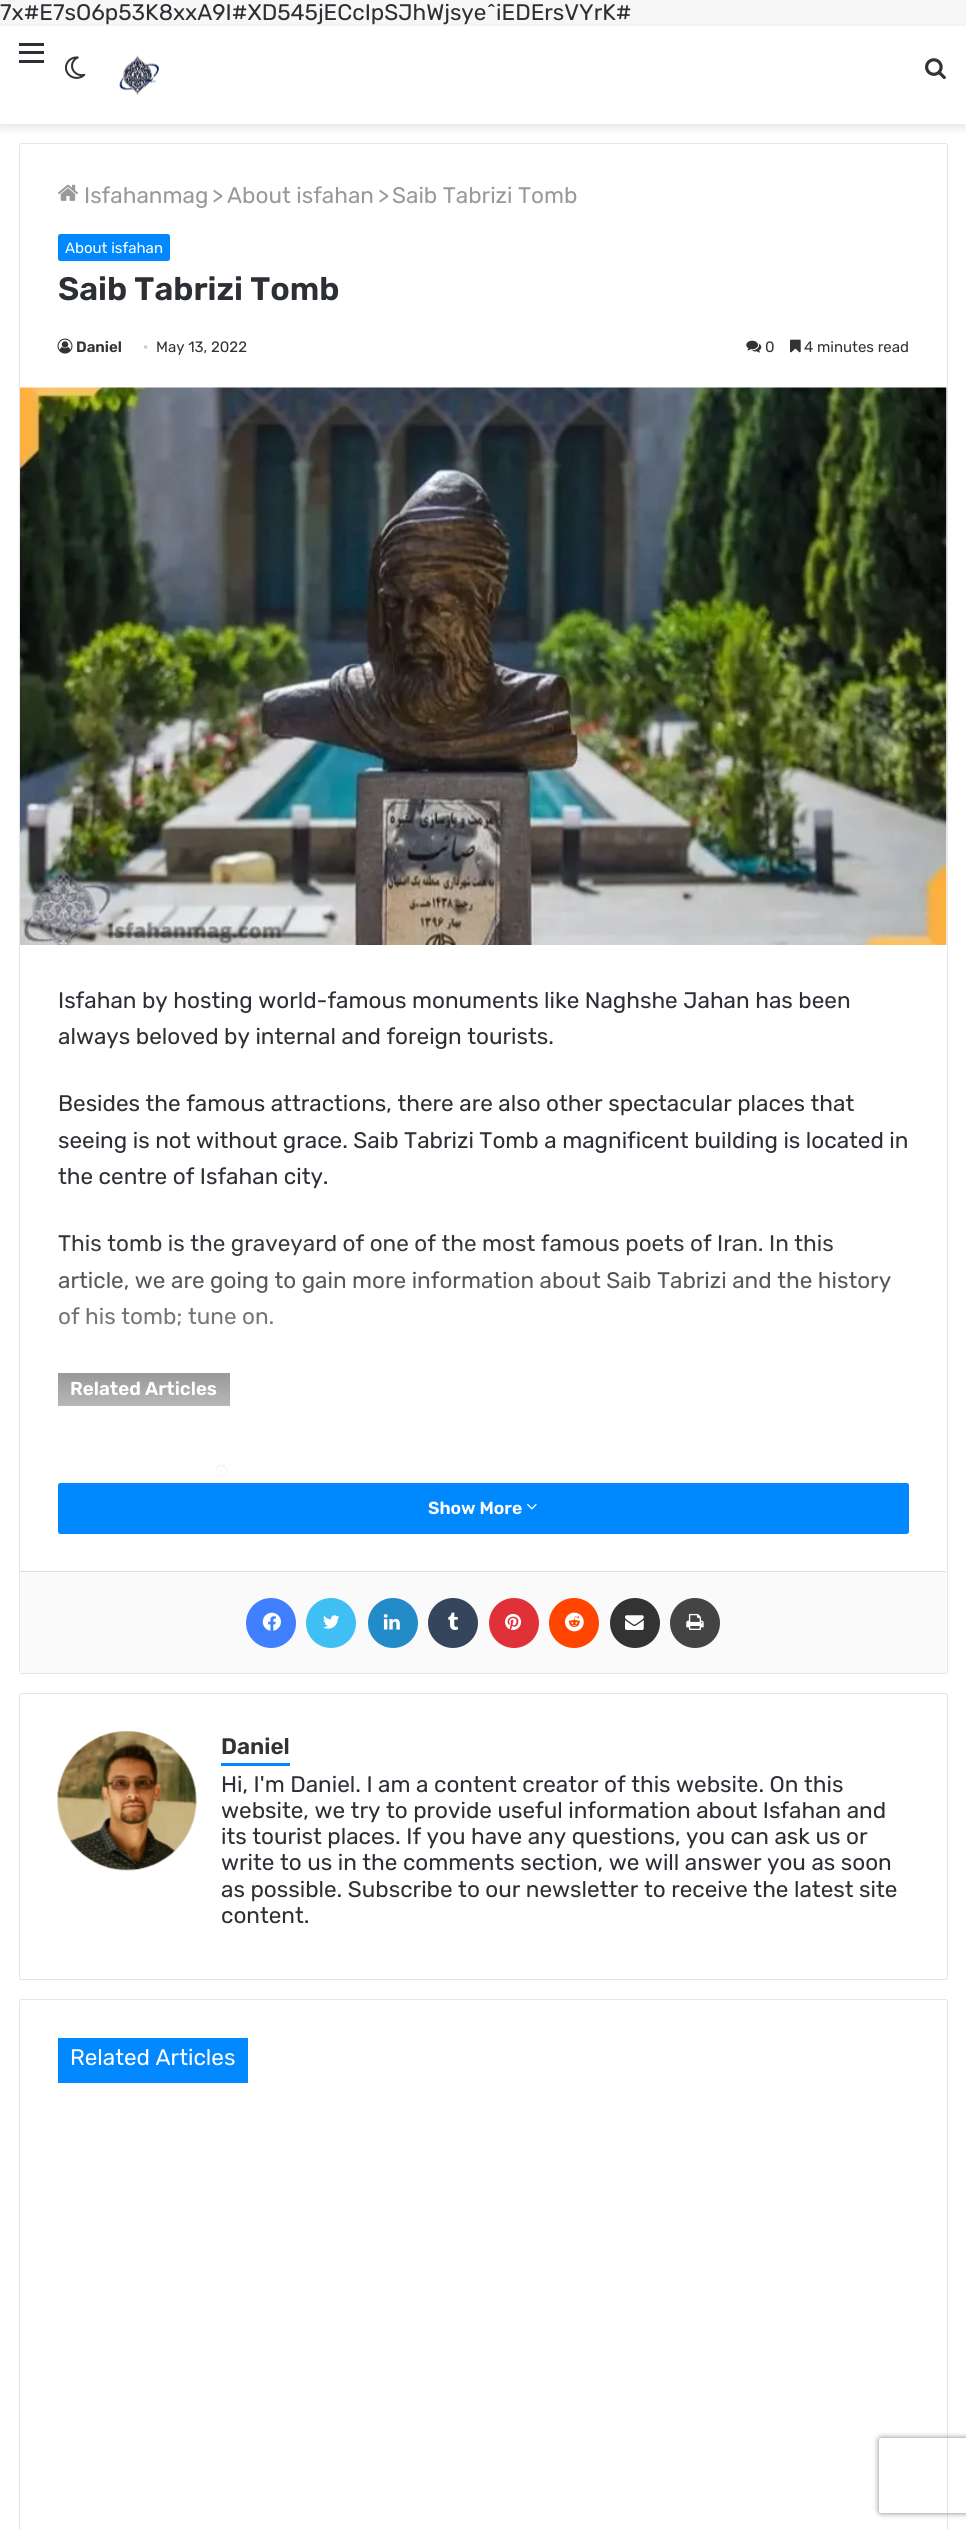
#include <cairo/cairo.h>
#include <math.h>
#include <stddef.h>


static void rounded_rect(cairo_t *cr, double x, double y, double w, double h, double r) {
  cairo_new_sub_path(cr);
  cairo_arc(cr, x + w - r, y + h - r, r, 0, M_PI / 2);
  cairo_arc(cr, x + r, y + h - r, r, M_PI / 2, M_PI);
  cairo_arc(cr, x + r, y + r, r, M_PI, 1.5 * M_PI);
  cairo_arc(cr, x + w - r, y + r, r, 1.5 * M_PI, 2 * M_PI);
  cairo_close_path(cr);
}

static void draw_shadow(cairo_t *cr, double x, double y, double w, double h, double r, double blur, double alpha) {
  cairo_push_group_with_content(cr, CAIRO_CONTENT_ALPHA);
  cairo_set_operator(cr, CAIRO_OPERATOR_SOURCE);
  for (int i = 15; i >= -15 && fmin(w, h) + blur * i / 3 > 0; i -= 2) {
    double e = blur * i / 6;
    cairo_set_source_rgba(cr, 0, 0, 0, alpha * erfc((i - 1) / 8.5) / 2);
    rounded_rect(cr, x - e, y - e, w + 2 * e, h + 2 * e, fmax(0, fmin(r + e + blur * .6, fmin(w, h) / 2 + e)));
    cairo_fill(cr);
  }
  cairo_pattern_t *soft = cairo_pop_group(cr);
  cairo_mask(cr, soft);
  cairo_pattern_destroy(soft);
}

static void draw_image(cairo_t *cr, const char *path, double x, double y, double w, double h) {
  cairo_surface_t *image = cairo_image_surface_create_from_png(path);
  cairo_save(cr);
  cairo_set_source_surface(cr, image, x, y);
  cairo_rectangle(cr, x, y, w, h);
  cairo_fill(cr);
  cairo_restore(cr);
  cairo_surface_destroy(image);
}

static void draw(cairo_t *cr) {
  cairo_pattern_t *gradient;
  cairo_set_source_rgb(cr, 247 / 255.0, 247 / 255.0, 247 / 255.0);
  cairo_paint(cr);
  cairo_set_source_rgb(cr, 1, 1, 1);
  cairo_rectangle(cr, 0, 124, 966, 2406);
  cairo_fill(cr);
  cairo_set_source_rgb(cr, 0, 0, 0);
  draw_shadow(cr, 0, 30, 966, 98, 0, 4.5, 0.1);
  cairo_set_source_rgb(cr, 1, 1, 1);
  cairo_rectangle(cr, 0, 26, 966, 98);
  cairo_fill(cr);
  cairo_set_source_rgb(cr, 44 / 255.0, 47 / 255.0, 52 / 255.0);
  cairo_rectangle(cr, 19, 51, 25, 3);
  cairo_fill(cr);
  cairo_rectangle(cr, 19, 43, 25, 3);
  cairo_fill(cr);
  cairo_rectangle(cr, 19, 60, 25, 3);
  cairo_fill(cr);
  draw_image(cr, "images/1.png", 64, 56, 22, 23);
  draw_image(cr, "images/2.png", 119, 55, 40, 40);
  draw_image(cr, "images/3.png", 925, 58, 21, 22);
  rounded_rect(cr, 19.5, 143.5, 928, 1530, 2);
  cairo_set_source_rgb(cr, 230 / 255.0, 230 / 255.0, 230 / 255.0);
  cairo_set_line_width(cr, 1);
  cairo_stroke(cr);
  draw_image(cr, "images/4.png", 57, 184, 21, 17);
  cairo_set_source_rgb(cr, 0, 136 / 255.0, 1);
  rounded_rect(cr, 58, 234, 112, 27, 2.5);
  cairo_fill(cr);
  draw_image(cr, "images/5.png", 57, 338, 16, 16);
  draw_image(cr, "images/6.png", 746, 340, 16, 13);
  draw_image(cr, "images/7.png", 790, 339, 11, 14);
  draw_image(cr, "images/8.png", 20, 387, 927, 558);
  cairo_set_source_rgb(cr, 22 / 255.0, 22 / 255.0, 22 / 255.0);
  cairo_rectangle(cr, 58, 1373, 172, 33);
  cairo_fill(cr);
  draw_image(cr, "images/9.png", 215, 1464, 13, 14);
  cairo_set_source_rgb(cr, 0, 136 / 255.0, 1);
  rounded_rect(cr, 58, 1483, 851, 51, 2.5);
  cairo_fill(cr);
  draw_image(cr, "images/10.png", 527, 1503, 10, 7);
  cairo_set_source_rgb(cr, 250 / 255.0, 250 / 255.0, 250 / 255.0);
  cairo_rectangle(cr, 20, 1572, 926, 101);
  cairo_fill(cr);
  cairo_set_source_rgb(cr, 225 / 255.0, 225 / 255.0, 225 / 255.0);
  cairo_rectangle(cr, 20, 1571, 926, 1);
  cairo_fill(cr);
  cairo_set_source_rgb(cr, 64 / 255.0, 128 / 255.0, 1);
  cairo_arc(cr, 271, 1623, 25, 0, 2 * M_PI);
  cairo_fill(cr);
  draw_image(cr, "images/11.png", 262, 1612, 19, 19);
  cairo_set_source_rgb(cr, 64 / 255.0, 191 / 255.0, 245 / 255.0);
  cairo_arc(cr, 331, 1623, 25, 0, 2 * M_PI);
  cairo_fill(cr);
  draw_image(cr, "images/12.png", 323, 1615, 17, 14);
  cairo_set_source_rgb(cr, 35 / 255.0, 140 / 255.0, 200 / 255.0);
  cairo_arc(cr, 393, 1623, 25, 0, 2 * M_PI);
  cairo_fill(cr);
  draw_image(cr, "images/13.png", 383, 1614, 17, 16);
  cairo_set_source_rgb(cr, 53 / 255.0, 70 / 255.0, 92 / 255.0);
  cairo_arc(cr, 453, 1623, 25, 0, 2 * M_PI);
  cairo_fill(cr);
  draw_image(cr, "images/14.png", 448, 1612, 11, 18);
  cairo_set_source_rgb(cr, 225 / 255.0, 49 / 255.0, 56 / 255.0);
  cairo_arc(cr, 514, 1623, 25, 0, 2 * M_PI);
  cairo_fill(cr);
  draw_image(cr, "images/15.png", 505, 1613, 17, 17);
  cairo_set_source_rgb(cr, 1, 69 / 255.0, 0);
  cairo_arc(cr, 574, 1623, 25, 0, 2 * M_PI);
  cairo_fill(cr);
  draw_image(cr, "images/16.png", 565, 1612, 19, 20);
  cairo_set_source_rgb(cr, 51 / 255.0, 51 / 255.0, 51 / 255.0);
  cairo_arc(cr, 635, 1623, 25, 0, 2 * M_PI);
  cairo_fill(cr);
  draw_image(cr, "images/17.png", 625, 1615, 19, 15);
  cairo_set_source_rgb(cr, 68 / 255.0, 68 / 255.0, 68 / 255.0);
  cairo_arc(cr, 695, 1623, 25, 0, 2 * M_PI);
  cairo_fill(cr);
  draw_image(cr, "images/18.png", 686, 1613, 18, 17);
  rounded_rect(cr, 19.5, 1693.5, 928, 286, 2);
  cairo_set_source_rgb(cr, 230 / 255.0, 230 / 255.0, 230 / 255.0);
  cairo_stroke(cr);
  draw_image(cr, "images/19.png", 57, 1731, 140, 140);
  cairo_set_source_rgb(cr, 0, 136 / 255.0, 1);
  cairo_rectangle(cr, 221, 1763, 69, 3);
  cairo_fill(cr);
  rounded_rect(cr, 19.5, 1999.5, 928, 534, 2);
  cairo_set_source_rgb(cr, 230 / 255.0, 230 / 255.0, 230 / 255.0);
  cairo_stroke(cr);
  cairo_set_source_rgb(cr, 3 / 255.0, 137 / 255.0, 1);
  cairo_rectangle(cr, 58, 2038, 190, 45);
  cairo_fill(cr);
  cairo_save(cr);
  cairo_set_fill_rule(cr, CAIRO_FILL_RULE_EVEN_ODD);
  cairo_new_path(cr);
  cairo_move_to(cr, 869, 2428);
  cairo_line_to(cr, 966, 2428);
  cairo_line_to(cr, 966, 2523);
  cairo_line_to(cr, 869, 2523);
  cairo_close_path(cr);
  cairo_move_to(cr, 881.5, 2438);
  cairo_line_to(cr, 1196.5, 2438);
  cairo_curve_to(cr, 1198, 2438, 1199, 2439, 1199, 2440.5);
  cairo_line_to(cr, 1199, 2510.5);
  cairo_curve_to(cr, 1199, 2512, 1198, 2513, 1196.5, 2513);
  cairo_line_to(cr, 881.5, 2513);
  cairo_curve_to(cr, 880, 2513, 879, 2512, 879, 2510.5);
  cairo_line_to(cr, 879, 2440.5);
  cairo_curve_to(cr, 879, 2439, 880, 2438, 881.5, 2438);
  cairo_close_path(cr);
  cairo_clip(cr);
  cairo_set_source_rgb(cr, 128 / 255.0, 128 / 255.0, 128 / 255.0);
  draw_shadow(cr, 879, 2438, 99, 75, 2.5, 3, 1);
  cairo_restore(cr);
  cairo_select_font_face(cr, "Rubik", CAIRO_FONT_SLANT_NORMAL, CAIRO_FONT_WEIGHT_NORMAL);
  cairo_set_font_size(cr, 22.5);
  cairo_set_source_rgb(cr, 44 / 255.0, 47 / 255.0, 52 / 255.0);
  cairo_move_to(cr, 0, 20);
  cairo_show_text(cr, "7x#E7sO6p53K8xxA9I#XD545jECcIpSJhWjsye^iEDErsVYrK#");
  cairo_set_source_rgb(cr, 153 / 255.0, 153 / 255.0, 153 / 255.0);
  cairo_move_to(cr, 84, 203);
  cairo_show_text(cr, "Isfahanmag");
  cairo_move_to(cr, 212, 203);
  cairo_show_text(cr, ">");
  cairo_move_to(cr, 227, 203);
  cairo_show_text(cr, "About isfahan");
  cairo_move_to(cr, 378, 203);
  cairo_show_text(cr, ">");
  cairo_move_to(cr, 392, 203);
  cairo_show_text(cr, "Saib Tabrizi Tomb");
  cairo_set_font_size(cr, 15);
  cairo_set_source_rgb(cr, 1, 1, 1);
  cairo_move_to(cr, 65, 253);
  cairo_show_text(cr, "About isfahan");
  cairo_select_font_face(cr, "Rubik SemiBold", CAIRO_FONT_SLANT_NORMAL, CAIRO_FONT_WEIGHT_NORMAL);
  cairo_set_font_size(cr, 32.5);
  cairo_set_source_rgb(cr, 44 / 255.0, 47 / 255.0, 52 / 255.0);
  cairo_move_to(cr, 58, 300);
  cairo_show_text(cr, "Saib Tabrizi Tomb");
  cairo_set_font_size(cr, 15);
  cairo_set_source_rgb(cr, 51 / 255.0, 51 / 255.0, 51 / 255.0);
  cairo_move_to(cr, 76, 352);
  cairo_show_text(cr, "Daniel");
  cairo_select_font_face(cr, "Liberation Serif", CAIRO_FONT_SLANT_NORMAL, CAIRO_FONT_WEIGHT_NORMAL);
  cairo_set_source_rgb(cr, 204 / 255.0, 204 / 255.0, 204 / 255.0);
  cairo_move_to(cr, 143, 352);
  cairo_show_text(cr, "•");
  cairo_select_font_face(cr, "Rubik", CAIRO_FONT_SLANT_NORMAL, CAIRO_FONT_WEIGHT_NORMAL);
  cairo_set_source_rgb(cr, 51 / 255.0, 51 / 255.0, 51 / 255.0);
  cairo_move_to(cr, 156, 352);
  cairo_show_text(cr, "May 13, 2022");
  cairo_move_to(cr, 765, 352);
  cairo_show_text(cr, "0");
  cairo_move_to(cr, 804, 352);
  cairo_show_text(cr, "4 minutes read");
  cairo_set_font_size(cr, 22.5);
  cairo_set_source_rgb(cr, 44 / 255.0, 47 / 255.0, 52 / 255.0);
  cairo_move_to(cr, 58, 1008);
  cairo_show_text(cr, "Isfahan by hosting world-famous monuments like Naghshe Jahan has been");
  cairo_move_to(cr, 58, 1044);
  cairo_show_text(cr, "always beloved by internal and foreign tourists.");
  cairo_move_to(cr, 58, 1111);
  cairo_show_text(cr, "Besides the famous attractions, there are also other spectacular places that");
  cairo_move_to(cr, 58, 1148);
  cairo_show_text(cr, "seeing is not without grace. Saib Tabrizi Tomb a magnificent building is located in");
  cairo_move_to(cr, 58, 1184);
  cairo_show_text(cr, "the centre of Isfahan city.");
  cairo_move_to(cr, 58, 1251);
  cairo_show_text(cr, "This tomb is the graveyard of one of the most famous poets of Iran. In this");
  cairo_move_to(cr, 58, 1288);
  cairo_show_text(cr, "article, we are going to gain more information about Saib Tabrizi and the history");
  cairo_move_to(cr, 58, 1324);
  cairo_show_text(cr, "of his tomb; tune on.");
  cairo_select_font_face(cr, "Rubik SemiBold", CAIRO_FONT_SLANT_NORMAL, CAIRO_FONT_WEIGHT_NORMAL);
  cairo_set_font_size(cr, 18.75);
  cairo_set_source_rgb(cr, 1, 1, 1);
  cairo_move_to(cr, 70, 1395);
  cairo_show_text(cr, "Related Articles");
  gradient = cairo_pattern_create_linear(483, 983, 483, 1483);
  cairo_pattern_add_color_stop_rgba(gradient, 0.5, 1, 1, 1, 0);
  cairo_pattern_add_color_stop_rgba(gradient, 1, 1, 1, 1, 1);
  cairo_set_source(cr, gradient);
  cairo_pattern_destroy(gradient);
  cairo_rectangle(cr, 58, 1238, 832, 240);
  cairo_fill(cr);
  cairo_set_font_size(cr, 17.5);
  cairo_set_source_rgb(cr, 1, 1, 1);
  cairo_move_to(cr, 428, 1514);
  cairo_show_text(cr, "Show More");
  cairo_set_font_size(cr, 22.5);
  cairo_set_source_rgb(cr, 51 / 255.0, 51 / 255.0, 51 / 255.0);
  cairo_move_to(cr, 221, 1754);
  cairo_show_text(cr, "Daniel");
  cairo_select_font_face(cr, "Rubik", CAIRO_FONT_SLANT_NORMAL, CAIRO_FONT_WEIGHT_NORMAL);
  cairo_set_source_rgb(cr, 44 / 255.0, 47 / 255.0, 52 / 255.0);
  cairo_move_to(cr, 221, 1792);
  cairo_show_text(cr, "Hi, I'm Daniel. I am a content creator of this website. On this");
  cairo_move_to(cr, 221, 1818);
  cairo_show_text(cr, "website, we try to provide useful information about Isfahan and");
  cairo_move_to(cr, 221, 1844);
  cairo_show_text(cr, "its tourist places. If you have any questions, you can ask us or");
  cairo_move_to(cr, 221, 1870);
  cairo_show_text(cr, "write to us in the comments section, we will answer you as soon");
  cairo_move_to(cr, 221, 1897);
  cairo_show_text(cr, "as possible. Subscribe to our newsletter to receive the latest site");
  cairo_move_to(cr, 221, 1923);
  cairo_show_text(cr, "content.");
  cairo_set_source_rgb(cr, 1, 1, 1);
  cairo_move_to(cr, 70, 2065);
  cairo_show_text(cr, "Related Articles");
}

int main(void) {
  cairo_surface_t *surface = cairo_image_surface_create(CAIRO_FORMAT_RGB24, 966, 2530);
  cairo_t *cr = cairo_create(surface);
  cairo_font_options_t *options = cairo_font_options_create();
  cairo_font_options_set_hint_metrics(options, CAIRO_HINT_METRICS_OFF);
  cairo_font_options_set_hint_style(options, CAIRO_HINT_STYLE_NONE);
  cairo_set_font_options(cr, options);
  cairo_set_miter_limit(cr, 4);
  draw(cr);
  cairo_surface_write_to_png(surface, "out.png");
  cairo_font_options_destroy(options);
  cairo_destroy(cr);
  cairo_surface_destroy(surface);
  return 0;
}
